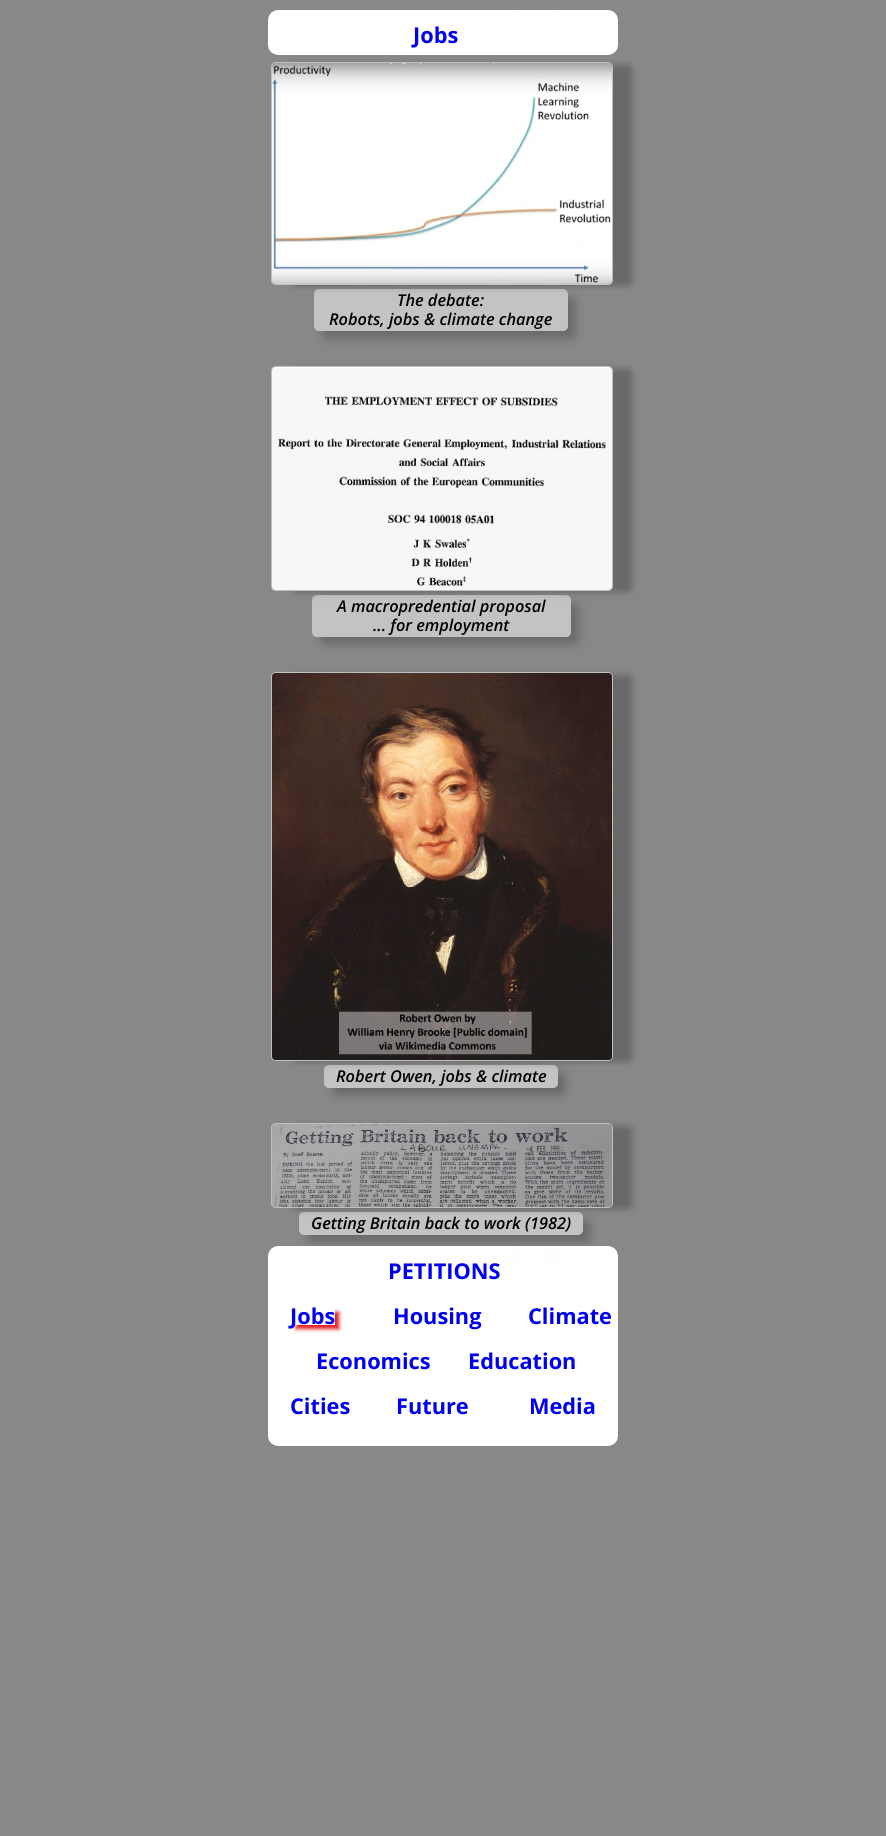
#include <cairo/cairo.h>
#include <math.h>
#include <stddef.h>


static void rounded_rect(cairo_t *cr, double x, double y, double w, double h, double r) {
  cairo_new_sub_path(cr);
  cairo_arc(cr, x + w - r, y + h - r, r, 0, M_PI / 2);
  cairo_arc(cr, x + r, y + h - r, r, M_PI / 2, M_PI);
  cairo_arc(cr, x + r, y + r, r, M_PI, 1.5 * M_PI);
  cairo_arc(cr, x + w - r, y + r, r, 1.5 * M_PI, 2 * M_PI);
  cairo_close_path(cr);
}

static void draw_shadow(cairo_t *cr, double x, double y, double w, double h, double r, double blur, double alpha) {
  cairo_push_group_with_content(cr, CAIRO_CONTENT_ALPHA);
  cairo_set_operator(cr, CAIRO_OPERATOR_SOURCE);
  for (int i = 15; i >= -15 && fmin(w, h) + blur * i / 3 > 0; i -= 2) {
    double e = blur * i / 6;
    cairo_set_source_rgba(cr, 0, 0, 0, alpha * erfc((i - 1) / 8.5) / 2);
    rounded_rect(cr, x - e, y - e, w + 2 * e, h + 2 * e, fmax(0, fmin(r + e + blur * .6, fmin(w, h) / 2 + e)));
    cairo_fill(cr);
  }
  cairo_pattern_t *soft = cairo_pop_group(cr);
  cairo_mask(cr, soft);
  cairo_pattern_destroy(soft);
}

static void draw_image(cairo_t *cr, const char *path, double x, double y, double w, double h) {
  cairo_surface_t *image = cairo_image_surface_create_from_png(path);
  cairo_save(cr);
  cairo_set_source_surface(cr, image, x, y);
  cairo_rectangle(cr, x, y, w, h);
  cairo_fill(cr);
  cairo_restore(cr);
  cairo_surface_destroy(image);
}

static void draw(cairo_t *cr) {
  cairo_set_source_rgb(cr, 136 / 255.0, 136 / 255.0, 136 / 255.0);
  cairo_paint(cr);
  draw_image(cr, "images/1.png", 268, 10, 350, 45);
  cairo_save(cr);
  cairo_set_fill_rule(cr, CAIRO_FILL_RULE_EVEN_ODD);
  cairo_new_path(cr);
  cairo_move_to(cr, 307, 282);
  cairo_line_to(cr, 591, 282);
  cairo_line_to(cr, 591, 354);
  cairo_line_to(cr, 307, 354);
  cairo_close_path(cr);
  cairo_move_to(cr, 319, 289);
  cairo_line_to(cr, 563, 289);
  cairo_curve_to(cr, 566, 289, 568, 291, 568, 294);
  cairo_line_to(cr, 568, 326);
  cairo_curve_to(cr, 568, 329, 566, 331, 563, 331);
  cairo_line_to(cr, 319, 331);
  cairo_curve_to(cr, 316, 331, 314, 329, 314, 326);
  cairo_line_to(cr, 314, 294);
  cairo_curve_to(cr, 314, 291, 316, 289, 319, 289);
  cairo_close_path(cr);
  cairo_clip(cr);
  cairo_set_source_rgb(cr, 100 / 255.0, 100 / 255.0, 100 / 255.0);
  draw_shadow(cr, 323, 298, 252, 40, 4, 5, 0.9);
  cairo_restore(cr);
  cairo_set_source_rgba(cr, 220 / 255.0, 220 / 255.0, 220 / 255.0, 0.7);
  rounded_rect(cr, 314, 289, 254, 42, 5);
  cairo_fill(cr);
  cairo_set_source_rgb(cr, 100 / 255.0, 100 / 255.0, 100 / 255.0);
  draw_shadow(cr, 292, 65, 340, 221, 4, 3.5, 0.9);
  rounded_rect(cr, 271.5, 62.5, 341, 222, 4.5);
  cairo_set_source_rgb(cr, 192 / 255.0, 192 / 255.0, 192 / 255.0);
  cairo_set_line_width(cr, 1);
  cairo_stroke(cr);
  draw_image(cr, "images/2.png", 272, 63, 340, 221);
  cairo_save(cr);
  cairo_set_fill_rule(cr, CAIRO_FILL_RULE_EVEN_ODD);
  cairo_new_path(cr);
  cairo_move_to(cr, 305, 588);
  cairo_line_to(cr, 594, 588);
  cairo_line_to(cr, 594, 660);
  cairo_line_to(cr, 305, 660);
  cairo_close_path(cr);
  cairo_move_to(cr, 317, 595);
  cairo_line_to(cr, 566, 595);
  cairo_curve_to(cr, 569, 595, 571, 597, 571, 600);
  cairo_line_to(cr, 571, 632);
  cairo_curve_to(cr, 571, 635, 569, 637, 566, 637);
  cairo_line_to(cr, 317, 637);
  cairo_curve_to(cr, 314, 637, 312, 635, 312, 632);
  cairo_line_to(cr, 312, 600);
  cairo_curve_to(cr, 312, 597, 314, 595, 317, 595);
  cairo_close_path(cr);
  cairo_clip(cr);
  cairo_set_source_rgb(cr, 100 / 255.0, 100 / 255.0, 100 / 255.0);
  draw_shadow(cr, 321, 604, 257, 40, 4, 5, 0.9);
  cairo_restore(cr);
  cairo_set_source_rgba(cr, 220 / 255.0, 220 / 255.0, 220 / 255.0, 0.7);
  rounded_rect(cr, 312, 595, 259, 42, 5);
  cairo_fill(cr);
  cairo_set_source_rgb(cr, 100 / 255.0, 100 / 255.0, 100 / 255.0);
  draw_shadow(cr, 292, 369, 340, 223, 4, 3.5, 0.9);
  rounded_rect(cr, 271.5, 366.5, 341, 224, 4.5);
  cairo_set_source_rgb(cr, 192 / 255.0, 192 / 255.0, 192 / 255.0);
  cairo_stroke(cr);
  draw_image(cr, "images/3.png", 272, 367, 340, 223);
  cairo_save(cr);
  cairo_set_fill_rule(cr, CAIRO_FILL_RULE_EVEN_ODD);
  cairo_new_path(cr);
  cairo_move_to(cr, 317, 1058);
  cairo_line_to(cr, 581, 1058);
  cairo_line_to(cr, 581, 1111);
  cairo_line_to(cr, 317, 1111);
  cairo_close_path(cr);
  cairo_move_to(cr, 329, 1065);
  cairo_line_to(cr, 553, 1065);
  cairo_curve_to(cr, 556, 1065, 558, 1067, 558, 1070);
  cairo_line_to(cr, 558, 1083);
  cairo_curve_to(cr, 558, 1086, 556, 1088, 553, 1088);
  cairo_line_to(cr, 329, 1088);
  cairo_curve_to(cr, 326, 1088, 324, 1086, 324, 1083);
  cairo_line_to(cr, 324, 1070);
  cairo_curve_to(cr, 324, 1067, 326, 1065, 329, 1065);
  cairo_close_path(cr);
  cairo_clip(cr);
  cairo_set_source_rgb(cr, 100 / 255.0, 100 / 255.0, 100 / 255.0);
  draw_shadow(cr, 333, 1074, 232, 21, 4, 5, 0.9);
  cairo_restore(cr);
  cairo_set_source_rgba(cr, 220 / 255.0, 220 / 255.0, 220 / 255.0, 0.7);
  rounded_rect(cr, 324, 1065, 234, 23, 5);
  cairo_fill(cr);
  cairo_set_source_rgb(cr, 100 / 255.0, 100 / 255.0, 100 / 255.0);
  draw_shadow(cr, 292, 675, 340, 387, 4, 3.5, 0.9);
  rounded_rect(cr, 271.5, 672.5, 341, 388, 4.5);
  cairo_set_source_rgb(cr, 192 / 255.0, 192 / 255.0, 192 / 255.0);
  cairo_stroke(cr);
  draw_image(cr, "images/4.png", 272, 673, 340, 387);
  cairo_save(cr);
  cairo_set_fill_rule(cr, CAIRO_FILL_RULE_EVEN_ODD);
  cairo_new_path(cr);
  cairo_move_to(cr, 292, 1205);
  cairo_line_to(cr, 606, 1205);
  cairo_line_to(cr, 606, 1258);
  cairo_line_to(cr, 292, 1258);
  cairo_close_path(cr);
  cairo_move_to(cr, 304, 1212);
  cairo_line_to(cr, 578, 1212);
  cairo_curve_to(cr, 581, 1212, 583, 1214, 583, 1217);
  cairo_line_to(cr, 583, 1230);
  cairo_curve_to(cr, 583, 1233, 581, 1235, 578, 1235);
  cairo_line_to(cr, 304, 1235);
  cairo_curve_to(cr, 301, 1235, 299, 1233, 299, 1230);
  cairo_line_to(cr, 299, 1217);
  cairo_curve_to(cr, 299, 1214, 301, 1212, 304, 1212);
  cairo_close_path(cr);
  cairo_clip(cr);
  cairo_set_source_rgb(cr, 100 / 255.0, 100 / 255.0, 100 / 255.0);
  draw_shadow(cr, 308, 1221, 282, 21, 4, 5, 0.9);
  cairo_restore(cr);
  cairo_set_source_rgba(cr, 220 / 255.0, 220 / 255.0, 220 / 255.0, 0.7);
  rounded_rect(cr, 299, 1212, 284, 23, 5);
  cairo_fill(cr);
  cairo_set_source_rgb(cr, 100 / 255.0, 100 / 255.0, 100 / 255.0);
  draw_shadow(cr, 292, 1126, 340, 83, 4, 3.5, 0.9);
  rounded_rect(cr, 271.5, 1123.5, 341, 84, 4.5);
  cairo_set_source_rgb(cr, 192 / 255.0, 192 / 255.0, 192 / 255.0);
  cairo_stroke(cr);
  draw_image(cr, "images/5.png", 272, 1124, 340, 83);
  draw_image(cr, "images/6.png", 268, 1246, 350, 200);
  cairo_save(cr);
  cairo_set_fill_rule(cr, CAIRO_FILL_RULE_EVEN_ODD);
  cairo_new_path(cr);
  cairo_move_to(cr, 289, 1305);
  cairo_line_to(cr, 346, 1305);
  cairo_line_to(cr, 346, 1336);
  cairo_line_to(cr, 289, 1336);
  cairo_close_path(cr);
  cairo_move_to(cr, 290, 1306);
  cairo_line_to(cr, 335, 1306);
  cairo_line_to(cr, 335, 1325);
  cairo_line_to(cr, 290, 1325);
  cairo_close_path(cr);
  cairo_clip(cr);
  cairo_set_source_rgb(cr, 221 / 255.0, 0, 0);
  draw_shadow(cr, 296, 1312, 43, 17, 0, 2, 0.9);
  cairo_restore(cr);
  cairo_select_font_face(cr, "Open Sans", CAIRO_FONT_SLANT_NORMAL, CAIRO_FONT_WEIGHT_BOLD);
  cairo_set_font_size(cr, 21.75);
  cairo_set_source_rgb(cr, 0, 0, 238 / 255.0);
  cairo_move_to(cr, 413, 43);
  cairo_show_text(cr, "Jobs");
  cairo_select_font_face(cr, "Open Sans SemiBold", CAIRO_FONT_SLANT_ITALIC, CAIRO_FONT_WEIGHT_NORMAL);
  cairo_set_font_size(cr, 16.3);
  cairo_set_source_rgb(cr, 0, 0, 0);
  cairo_move_to(cr, 397, 306);
  cairo_show_text(cr, "The debate:");
  cairo_move_to(cr, 329, 325);
  cairo_show_text(cr, "Robots, jobs & climate change");
  cairo_move_to(cr, 337, 612);
  cairo_show_text(cr, "A macropredential proposal");
  cairo_move_to(cr, 373, 631);
  cairo_show_text(cr, "... for employment");
  cairo_move_to(cr, 336, 1082);
  cairo_show_text(cr, "Robert Owen, jobs & climate");
  cairo_move_to(cr, 311, 1229);
  cairo_show_text(cr, "Getting Britain back to work (1982)");
  cairo_select_font_face(cr, "Open Sans", CAIRO_FONT_SLANT_NORMAL, CAIRO_FONT_WEIGHT_BOLD);
  cairo_set_font_size(cr, 21.75);
  cairo_set_source_rgb(cr, 0, 0, 238 / 255.0);
  cairo_move_to(cr, 388, 1279);
  cairo_show_text(cr, "PETITIONS");
  cairo_move_to(cr, 290, 1324);
  cairo_show_text(cr, "Jobs");
  cairo_move_to(cr, 393, 1324);
  cairo_show_text(cr, "Housing");
  cairo_move_to(cr, 528, 1324);
  cairo_show_text(cr, "Climate");
  cairo_move_to(cr, 316, 1369);
  cairo_show_text(cr, "Economics");
  cairo_move_to(cr, 468, 1369);
  cairo_show_text(cr, "Education");
  cairo_move_to(cr, 290, 1414);
  cairo_show_text(cr, "Cities");
  cairo_move_to(cr, 396, 1414);
  cairo_show_text(cr, "Future");
  cairo_move_to(cr, 529, 1414);
  cairo_show_text(cr, "Media");
}

int main(void) {
  cairo_surface_t *surface = cairo_image_surface_create(CAIRO_FORMAT_RGB24, 886, 1836);
  cairo_t *cr = cairo_create(surface);
  cairo_font_options_t *options = cairo_font_options_create();
  cairo_font_options_set_hint_metrics(options, CAIRO_HINT_METRICS_OFF);
  cairo_font_options_set_hint_style(options, CAIRO_HINT_STYLE_NONE);
  cairo_set_font_options(cr, options);
  cairo_set_miter_limit(cr, 4);
  draw(cr);
  cairo_surface_write_to_png(surface, "out.png");
  cairo_font_options_destroy(options);
  cairo_destroy(cr);
  cairo_surface_destroy(surface);
  return 0;
}
